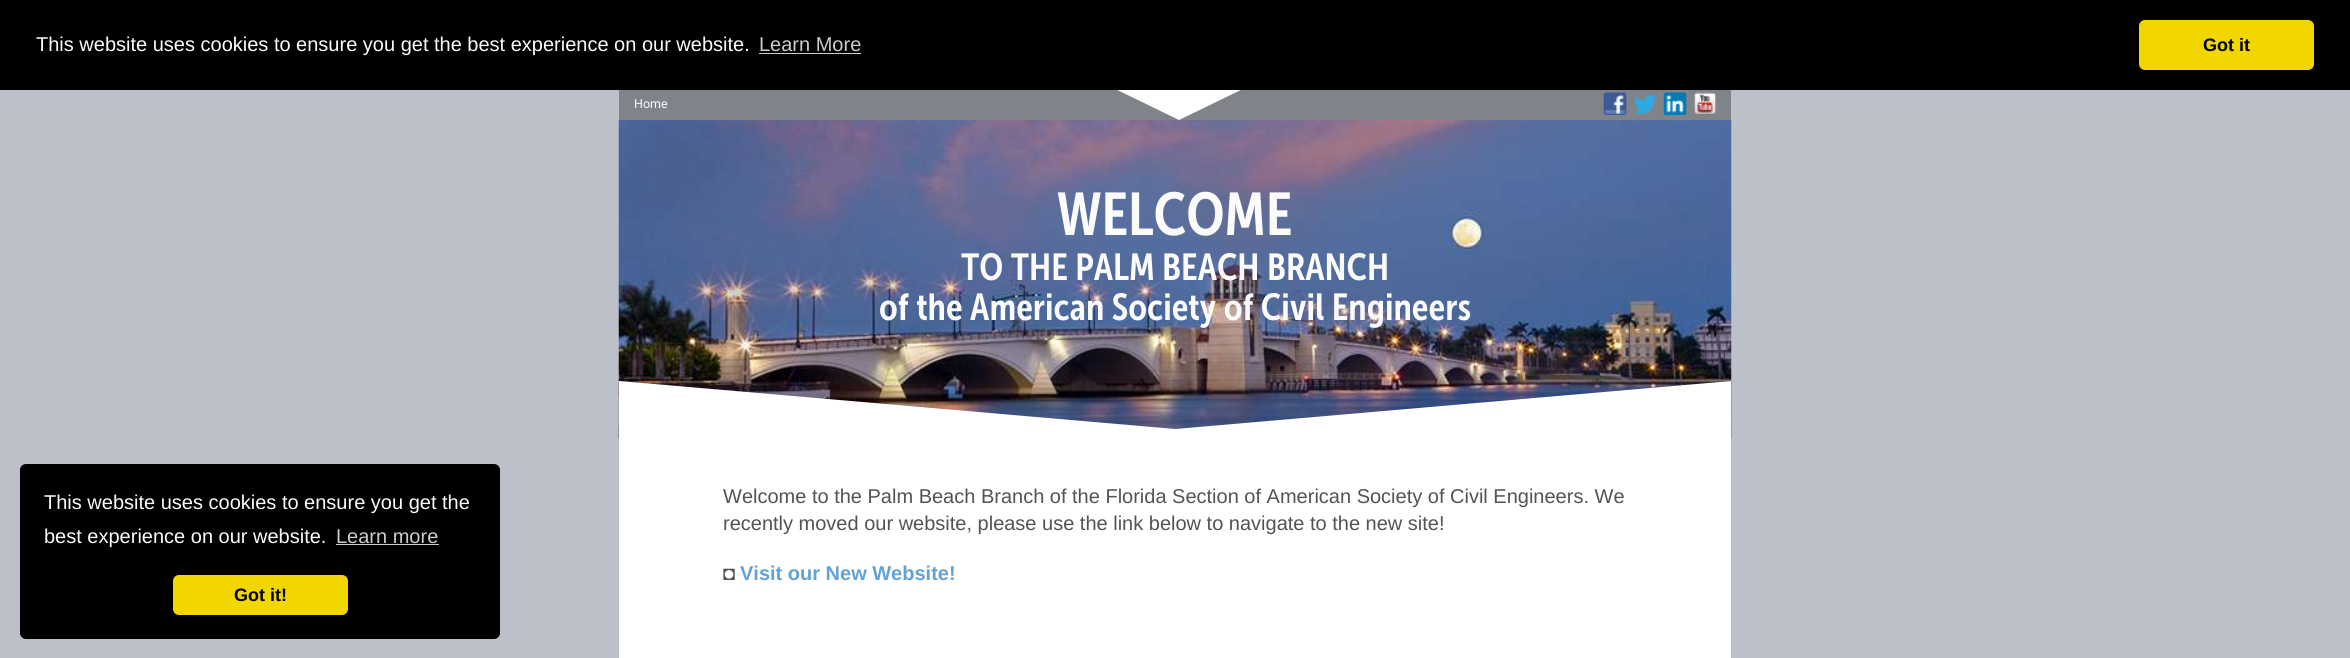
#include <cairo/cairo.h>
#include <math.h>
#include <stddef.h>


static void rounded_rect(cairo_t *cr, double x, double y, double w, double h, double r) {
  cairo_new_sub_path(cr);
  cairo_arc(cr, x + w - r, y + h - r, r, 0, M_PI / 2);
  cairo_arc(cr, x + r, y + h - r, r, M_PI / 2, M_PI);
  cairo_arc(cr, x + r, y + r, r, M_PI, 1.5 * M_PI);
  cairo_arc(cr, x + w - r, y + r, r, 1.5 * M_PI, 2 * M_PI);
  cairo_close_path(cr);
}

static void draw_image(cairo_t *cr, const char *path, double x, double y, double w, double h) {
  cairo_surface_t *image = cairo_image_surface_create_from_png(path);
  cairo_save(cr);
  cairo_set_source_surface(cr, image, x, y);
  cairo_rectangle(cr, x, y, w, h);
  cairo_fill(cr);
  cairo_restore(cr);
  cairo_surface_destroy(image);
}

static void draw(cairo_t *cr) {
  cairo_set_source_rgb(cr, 188 / 255.0, 192 / 255.0, 201 / 255.0);
  cairo_paint(cr);
  cairo_set_source_rgb(cr, 128 / 255.0, 131 / 255.0, 138 / 255.0);
  cairo_rectangle(cr, 619, 90, 1112, 30);
  cairo_fill(cr);
  cairo_set_source_rgb(cr, 1, 1, 1);
  cairo_new_path(cr);
  cairo_move_to(cr, 1109, 86);
  cairo_line_to(cr, 1249, 86);
  cairo_line_to(cr, 1179, 120);
  cairo_close_path(cr);
  cairo_fill(cr);
  cairo_set_source_rgb(cr, 0, 0, 0);
  cairo_rectangle(cr, 0, 0, 2350, 90);
  cairo_fill(cr);
  cairo_set_source_rgb(cr, 204 / 255.0, 204 / 255.0, 204 / 255.0);
  cairo_rectangle(cr, 759, 53, 102, 1);
  cairo_fill(cr);
  cairo_set_source_rgb(cr, 241 / 255.0, 214 / 255.0, 0);
  rounded_rect(cr, 2139, 20, 175, 50, 6);
  cairo_fill(cr);
  cairo_set_source_rgb(cr, 0, 0, 0);
  rounded_rect(cr, 20, 464, 480, 175, 6);
  cairo_fill(cr);
  cairo_set_source_rgb(cr, 204 / 255.0, 204 / 255.0, 204 / 255.0);
  cairo_rectangle(cr, 336, 544, 103, 1);
  cairo_fill(cr);
  cairo_set_source_rgb(cr, 241 / 255.0, 214 / 255.0, 0);
  rounded_rect(cr, 173, 575, 175, 40, 6);
  cairo_fill(cr);
  draw_image(cr, "images/1.png", 1603, 92, 24, 23);
  draw_image(cr, "images/2.png", 1633, 94, 24, 20);
  draw_image(cr, "images/3.png", 1663, 92, 24, 23);
  draw_image(cr, "images/4.png", 1693, 92, 24, 23);
  draw_image(cr, "images/5.png", 618, 120, 1114, 319);
  cairo_set_source_rgb(cr, 1, 1, 1);
  cairo_rectangle(cr, 619, 443, 1112, 215);
  cairo_fill(cr);
  cairo_new_path(cr);
  cairo_move_to(cr, 619, 381);
  cairo_line_to(cr, 1175, 429);
  cairo_line_to(cr, 1175, 492);
  cairo_line_to(cr, 619, 443);
  cairo_close_path(cr);
  cairo_fill(cr);
  cairo_new_path(cr);
  cairo_move_to(cr, 1175, 429);
  cairo_line_to(cr, 1731, 381);
  cairo_line_to(cr, 1731, 443);
  cairo_line_to(cr, 1175, 492);
  cairo_close_path(cr);
  cairo_fill(cr);
  cairo_select_font_face(cr, "Liberation Sans", CAIRO_FONT_SLANT_NORMAL, CAIRO_FONT_WEIGHT_NORMAL);
  cairo_set_font_size(cr, 20);
  cairo_set_source_rgb(cr, 251 / 255.0, 251 / 255.0, 251 / 255.0);
  cairo_move_to(cr, 36, 51);
  cairo_show_text(cr, "This website uses cookies to ensure you get the best experience on our website.");
  cairo_set_source_rgb(cr, 204 / 255.0, 204 / 255.0, 204 / 255.0);
  cairo_move_to(cr, 759, 51);
  cairo_show_text(cr, "Learn More");
  cairo_select_font_face(cr, "Liberation Sans", CAIRO_FONT_SLANT_NORMAL, CAIRO_FONT_WEIGHT_BOLD);
  cairo_set_font_size(cr, 18);
  cairo_set_source_rgb(cr, 0, 0, 0);
  cairo_move_to(cr, 2203, 51);
  cairo_show_text(cr, "Got it");
  cairo_select_font_face(cr, "Liberation Sans", CAIRO_FONT_SLANT_NORMAL, CAIRO_FONT_WEIGHT_NORMAL);
  cairo_set_font_size(cr, 20);
  cairo_set_source_rgb(cr, 251 / 255.0, 251 / 255.0, 251 / 255.0);
  cairo_move_to(cr, 44, 509);
  cairo_show_text(cr, "This website uses cookies to ensure you get the");
  cairo_move_to(cr, 44, 543);
  cairo_show_text(cr, "best experience on our website.");
  cairo_set_source_rgb(cr, 204 / 255.0, 204 / 255.0, 204 / 255.0);
  cairo_move_to(cr, 336, 543);
  cairo_show_text(cr, "Learn more");
  cairo_select_font_face(cr, "Liberation Sans", CAIRO_FONT_SLANT_NORMAL, CAIRO_FONT_WEIGHT_BOLD);
  cairo_set_font_size(cr, 18);
  cairo_set_source_rgb(cr, 0, 0, 0);
  cairo_move_to(cr, 234, 601);
  cairo_show_text(cr, "Got it!");
  cairo_select_font_face(cr, "Roboto", CAIRO_FONT_SLANT_NORMAL, CAIRO_FONT_WEIGHT_NORMAL);
  cairo_set_font_size(cr, 12.5);
  cairo_set_source_rgb(cr, 251 / 255.0, 251 / 255.0, 251 / 255.0);
  cairo_move_to(cr, 634, 108);
  cairo_show_text(cr, "Home");
  cairo_select_font_face(cr, "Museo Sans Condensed", CAIRO_FONT_SLANT_NORMAL, CAIRO_FONT_WEIGHT_BOLD);
  cairo_set_font_size(cr, 60);
  cairo_move_to(cr, 1057, 235);
  cairo_show_text(cr, "WELCOME");
  cairo_set_font_size(cr, 37.5);
  cairo_move_to(cr, 961, 280);
  cairo_show_text(cr, "TO THE PALM BEACH BRANCH");
  cairo_move_to(cr, 879, 320);
  cairo_show_text(cr, "of the American Society of Civil Engineers");
  cairo_select_font_face(cr, "Liberation Sans", CAIRO_FONT_SLANT_NORMAL, CAIRO_FONT_WEIGHT_NORMAL);
  cairo_set_font_size(cr, 20);
  cairo_set_source_rgb(cr, 82 / 255.0, 83 / 255.0, 85 / 255.0);
  cairo_move_to(cr, 723, 503);
  cairo_show_text(cr, "Welcome to the Palm Beach Branch of the Florida Section of American Society of Civil Engineers. We");
  cairo_move_to(cr, 723, 530);
  cairo_show_text(cr, "recently moved our website, please use the link below to navigate to the new site!");
  cairo_select_font_face(cr, "Liberation Sans", CAIRO_FONT_SLANT_NORMAL, CAIRO_FONT_WEIGHT_BOLD);
  cairo_move_to(cr, 723, 580);
  cairo_show_text(cr, "◘");
  cairo_set_source_rgb(cr, 98 / 255.0, 162 / 255.0, 214 / 255.0);
  cairo_move_to(cr, 740, 580);
  cairo_show_text(cr, "Visit our New Website!");
}

int main(void) {
  cairo_surface_t *surface = cairo_image_surface_create(CAIRO_FORMAT_RGB24, 2350, 658);
  cairo_t *cr = cairo_create(surface);
  cairo_font_options_t *options = cairo_font_options_create();
  cairo_font_options_set_hint_metrics(options, CAIRO_HINT_METRICS_OFF);
  cairo_font_options_set_hint_style(options, CAIRO_HINT_STYLE_NONE);
  cairo_set_font_options(cr, options);
  cairo_set_miter_limit(cr, 4);
  draw(cr);
  cairo_surface_write_to_png(surface, "out.png");
  cairo_font_options_destroy(options);
  cairo_destroy(cr);
  cairo_surface_destroy(surface);
  return 0;
}
